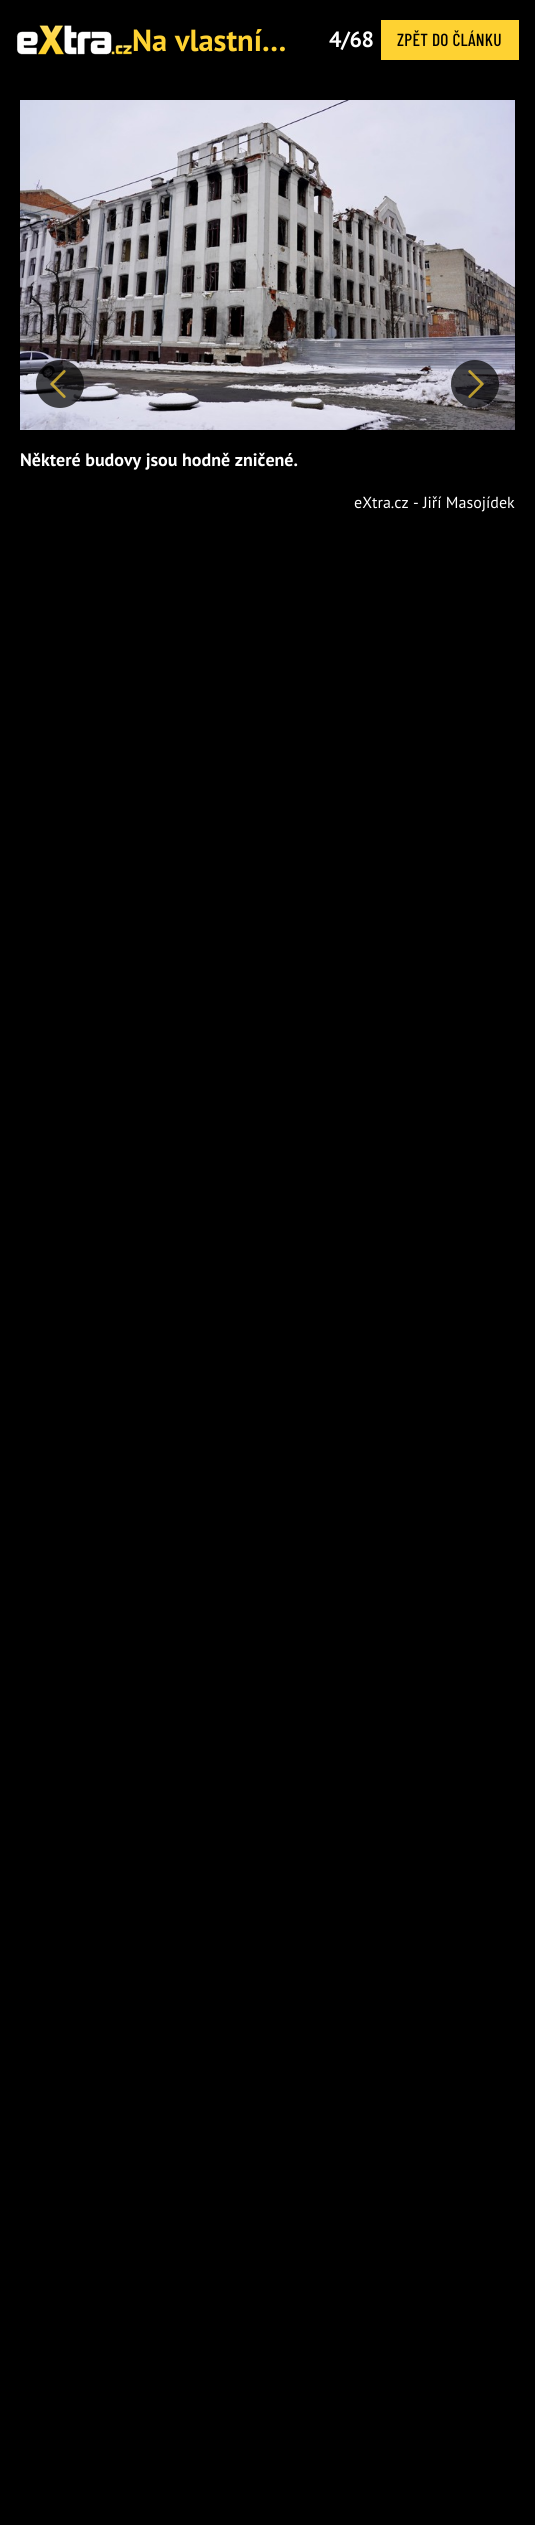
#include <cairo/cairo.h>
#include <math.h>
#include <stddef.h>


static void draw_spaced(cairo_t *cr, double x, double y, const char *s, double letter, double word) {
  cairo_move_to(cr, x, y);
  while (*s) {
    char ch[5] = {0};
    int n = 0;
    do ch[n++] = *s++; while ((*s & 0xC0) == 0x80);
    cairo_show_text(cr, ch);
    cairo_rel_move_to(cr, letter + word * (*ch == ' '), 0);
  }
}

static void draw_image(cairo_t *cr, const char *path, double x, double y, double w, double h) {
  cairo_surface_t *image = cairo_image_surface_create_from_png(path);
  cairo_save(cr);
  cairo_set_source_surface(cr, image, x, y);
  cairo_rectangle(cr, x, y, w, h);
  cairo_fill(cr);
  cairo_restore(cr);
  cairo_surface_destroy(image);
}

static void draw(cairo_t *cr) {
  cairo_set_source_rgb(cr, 0, 0, 0);
  cairo_paint(cr);
  draw_image(cr, "images/1.png", 16, 25, 116, 30);
  cairo_set_source_rgb(cr, 254 / 255.0, 210 / 255.0, 50 / 255.0);
  cairo_rectangle(cr, 381, 20, 138, 40);
  cairo_fill(cr);
  draw_image(cr, "images/2.png", 20, 100, 495, 330);
  cairo_set_source_rgba(cr, 0, 0, 0, 0.7);
  cairo_arc(cr, 60, 384, 24, 0, 2 * M_PI);
  cairo_fill(cr);
  draw_image(cr, "images/3.png", 50, 370, 16, 28);
  cairo_arc(cr, 475, 384, 24, 0, 2 * M_PI);
  cairo_fill(cr);
  draw_image(cr, "images/4.png", 468, 370, 16, 28);
  cairo_select_font_face(cr, "PT Sans", CAIRO_FONT_SLANT_NORMAL, CAIRO_FONT_WEIGHT_BOLD);
  cairo_set_font_size(cr, 30.5);
  cairo_set_source_rgb(cr, 254 / 255.0, 210 / 255.0, 50 / 255.0);
  cairo_move_to(cr, 132, 51);
  cairo_show_text(cr, "Na vlastní…");
  cairo_set_font_size(cr, 22);
  cairo_set_source_rgb(cr, 1, 1, 1);
  draw_spaced(cr, 329, 47, "4/68", -0.5, 0);
  cairo_select_font_face(cr, "Barlow Condensed Medium", CAIRO_FONT_SLANT_NORMAL, CAIRO_FONT_WEIGHT_NORMAL);
  cairo_set_font_size(cr, 17.5);
  cairo_set_source_rgb(cr, 0, 0, 0);
  draw_spaced(cr, 397, 46, "ZPĚT DO ČLÁNKU", 0.25, 0);
  cairo_select_font_face(cr, "PT Sans", CAIRO_FONT_SLANT_NORMAL, CAIRO_FONT_WEIGHT_BOLD);
  cairo_set_font_size(cr, 18);
  cairo_set_source_rgb(cr, 1, 1, 1);
  cairo_move_to(cr, 20, 466);
  cairo_show_text(cr, "Některé budovy jsou hodně zničené.");
  cairo_select_font_face(cr, "PT Sans", CAIRO_FONT_SLANT_NORMAL, CAIRO_FONT_WEIGHT_NORMAL);
  cairo_set_font_size(cr, 16);
  cairo_move_to(cr, 354, 508);
  cairo_show_text(cr, "eXtra.cz - Jiří Masojídek");
}

int main(void) {
  cairo_surface_t *surface = cairo_image_surface_create(CAIRO_FORMAT_RGB24, 535, 2525);
  cairo_t *cr = cairo_create(surface);
  cairo_font_options_t *options = cairo_font_options_create();
  cairo_font_options_set_hint_metrics(options, CAIRO_HINT_METRICS_OFF);
  cairo_font_options_set_hint_style(options, CAIRO_HINT_STYLE_NONE);
  cairo_set_font_options(cr, options);
  cairo_set_miter_limit(cr, 4);
  draw(cr);
  cairo_surface_write_to_png(surface, "out.png");
  cairo_font_options_destroy(options);
  cairo_destroy(cr);
  cairo_surface_destroy(surface);
  return 0;
}
